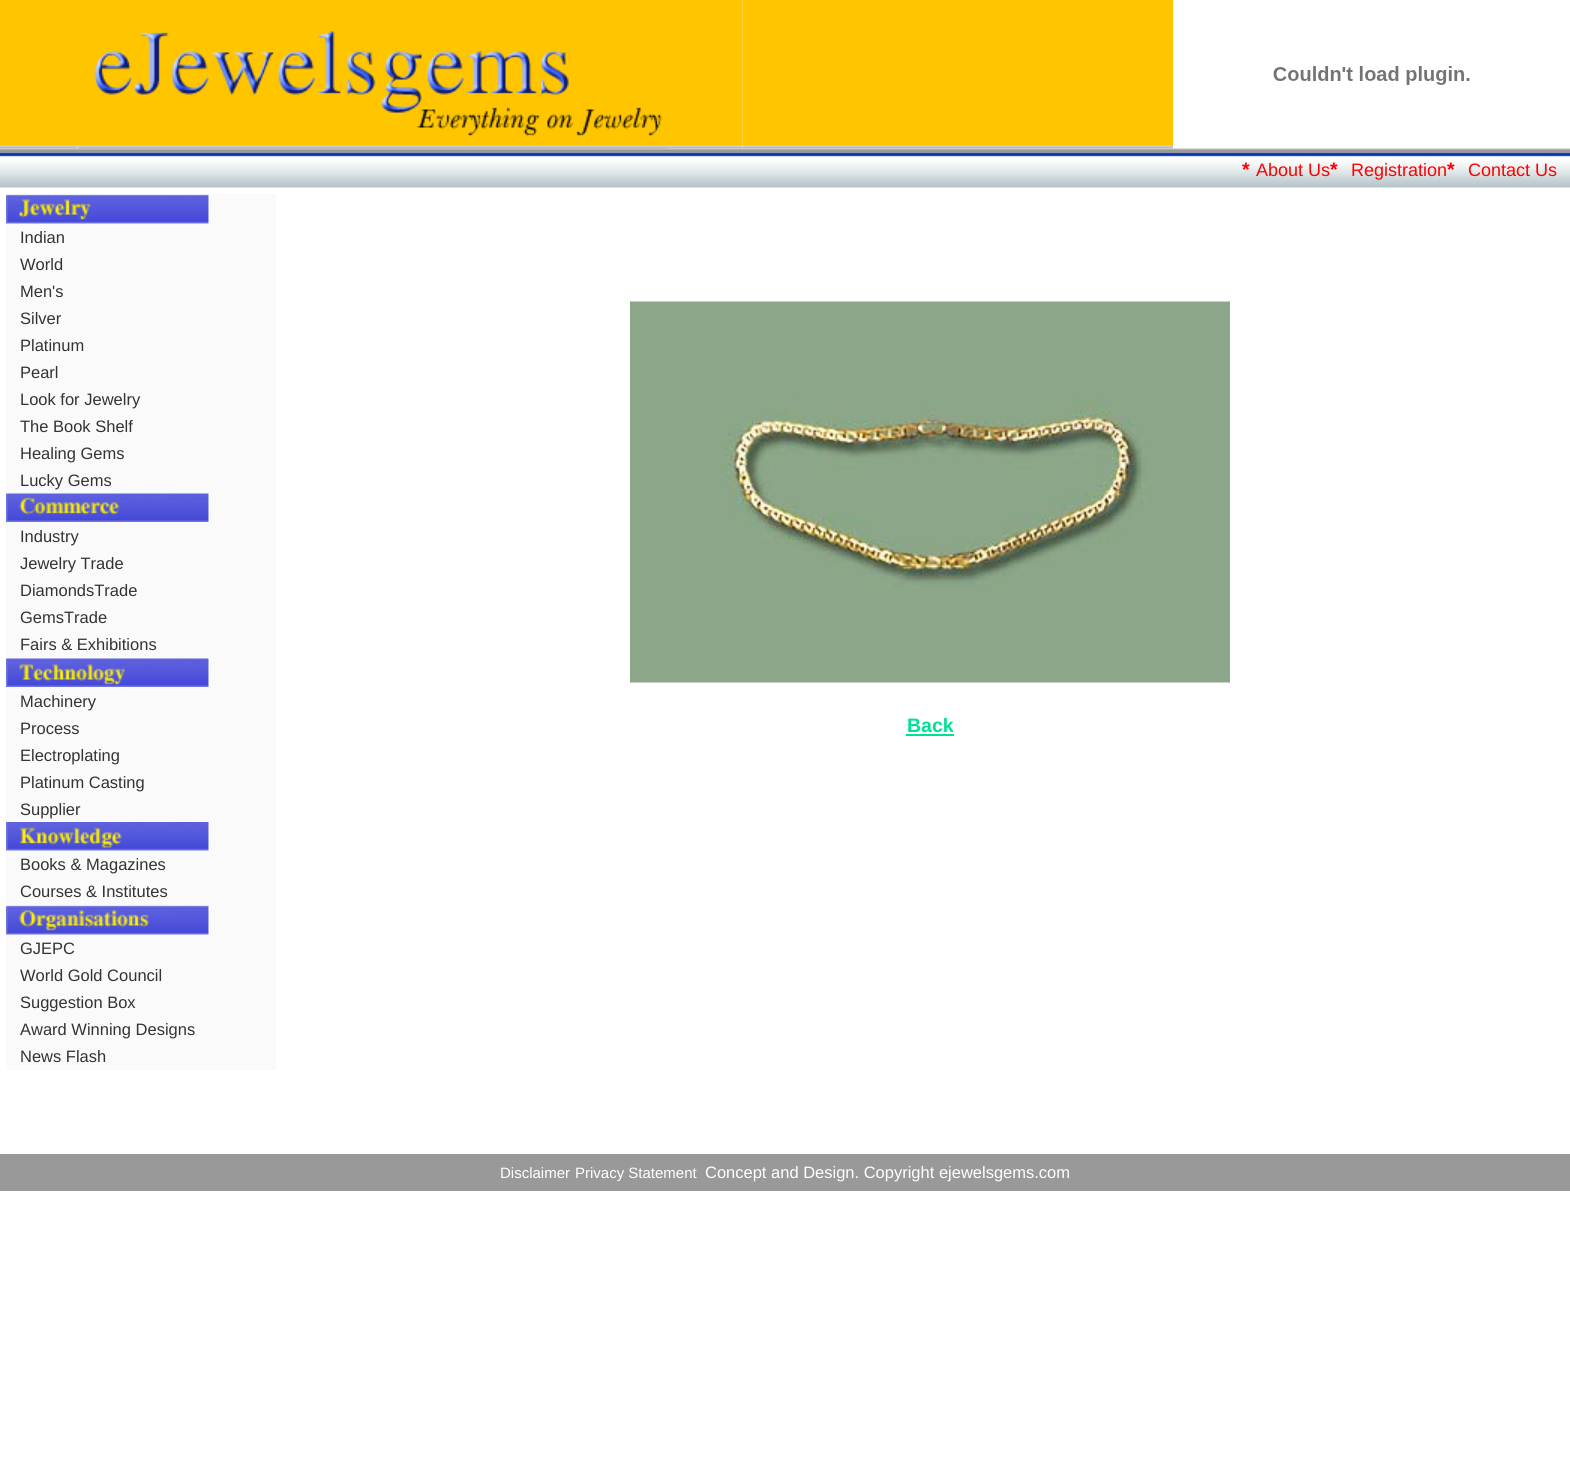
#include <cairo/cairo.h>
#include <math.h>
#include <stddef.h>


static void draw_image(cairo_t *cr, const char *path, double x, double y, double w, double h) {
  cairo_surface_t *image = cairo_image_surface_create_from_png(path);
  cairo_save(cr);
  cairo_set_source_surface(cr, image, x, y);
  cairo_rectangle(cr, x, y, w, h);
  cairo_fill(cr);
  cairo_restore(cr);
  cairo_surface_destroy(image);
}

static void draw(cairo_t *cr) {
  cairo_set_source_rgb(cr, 1, 1, 1);
  cairo_paint(cr);
  draw_image(cr, "images/1.png", 0, 0, 743, 149);
  draw_image(cr, "images/3.png", 742, 0, 431, 149);
  draw_image(cr, "images/5.png", 0, 148, 1570, 40);
  draw_image(cr, "images/2.png", 76, 31, 592, 118);
  draw_image(cr, "images/4.png", 1273, 66, 197, 19);
  cairo_set_source_rgb(cr, 250 / 255.0, 250 / 255.0, 250 / 255.0);
  cairo_rectangle(cr, 6, 194, 270, 876);
  cairo_fill(cr);
  draw_image(cr, "images/6.png", 6, 194, 204, 30);
  draw_image(cr, "images/7.png", 6, 493, 204, 29);
  draw_image(cr, "images/8.png", 6, 657, 204, 30);
  draw_image(cr, "images/9.png", 6, 822, 204, 29);
  draw_image(cr, "images/10.png", 6, 905, 204, 30);
  draw_image(cr, "images/11.png", 630, 301, 300, 191);
  draw_image(cr, "images/12.png", 930, 301, 300, 191);
  draw_image(cr, "images/13.png", 630, 492, 300, 191);
  draw_image(cr, "images/14.png", 930, 492, 300, 191);
  cairo_set_source_rgb(cr, 0, 224 / 255.0, 150 / 255.0);
  cairo_rectangle(cr, 906, 734, 48, 2);
  cairo_fill(cr);
  cairo_set_source_rgb(cr, 153 / 255.0, 153 / 255.0, 153 / 255.0);
  cairo_rectangle(cr, 0, 1154, 1570, 37);
  cairo_fill(cr);
  cairo_select_font_face(cr, "Liberation Sans", CAIRO_FONT_SLANT_NORMAL, CAIRO_FONT_WEIGHT_BOLD);
  cairo_set_font_size(cr, 19.5);
  cairo_set_source_rgb(cr, 1, 0, 0);
  cairo_move_to(cr, 1242, 176);
  cairo_show_text(cr, "*");
  cairo_select_font_face(cr, "Liberation Sans", CAIRO_FONT_SLANT_NORMAL, CAIRO_FONT_WEIGHT_NORMAL);
  cairo_set_font_size(cr, 18);
  cairo_move_to(cr, 1256, 176);
  cairo_show_text(cr, "About Us");
  cairo_select_font_face(cr, "Liberation Sans", CAIRO_FONT_SLANT_NORMAL, CAIRO_FONT_WEIGHT_BOLD);
  cairo_set_font_size(cr, 19.5);
  cairo_move_to(cr, 1330, 176);
  cairo_show_text(cr, "*");
  cairo_select_font_face(cr, "Liberation Sans", CAIRO_FONT_SLANT_NORMAL, CAIRO_FONT_WEIGHT_NORMAL);
  cairo_set_font_size(cr, 18);
  cairo_move_to(cr, 1351, 176);
  cairo_show_text(cr, "Registration");
  cairo_select_font_face(cr, "Liberation Sans", CAIRO_FONT_SLANT_NORMAL, CAIRO_FONT_WEIGHT_BOLD);
  cairo_set_font_size(cr, 19.5);
  cairo_move_to(cr, 1447, 176);
  cairo_show_text(cr, "*");
  cairo_select_font_face(cr, "Liberation Sans", CAIRO_FONT_SLANT_NORMAL, CAIRO_FONT_WEIGHT_NORMAL);
  cairo_set_font_size(cr, 18);
  cairo_move_to(cr, 1468, 176);
  cairo_show_text(cr, "Contact Us");
  cairo_set_font_size(cr, 16.5);
  cairo_set_source_rgb(cr, 51 / 255.0, 51 / 255.0, 51 / 255.0);
  cairo_move_to(cr, 20, 243);
  cairo_show_text(cr, "Indian");
  cairo_move_to(cr, 20, 270);
  cairo_show_text(cr, "World");
  cairo_move_to(cr, 20, 297);
  cairo_show_text(cr, "Men's");
  cairo_move_to(cr, 20, 324);
  cairo_show_text(cr, "Silver");
  cairo_move_to(cr, 20, 351);
  cairo_show_text(cr, "Platinum");
  cairo_move_to(cr, 20, 378);
  cairo_show_text(cr, "Pearl");
  cairo_move_to(cr, 20, 405);
  cairo_show_text(cr, "Look for Jewelry");
  cairo_move_to(cr, 20, 432);
  cairo_show_text(cr, "The Book Shelf");
  cairo_move_to(cr, 20, 459);
  cairo_show_text(cr, "Healing Gems");
  cairo_move_to(cr, 20, 486);
  cairo_show_text(cr, "Lucky Gems");
  cairo_move_to(cr, 20, 542);
  cairo_show_text(cr, "Industry");
  cairo_move_to(cr, 20, 569);
  cairo_show_text(cr, "Jewelry Trade");
  cairo_move_to(cr, 20, 596);
  cairo_show_text(cr, "DiamondsTrade");
  cairo_move_to(cr, 20, 623);
  cairo_show_text(cr, "GemsTrade");
  cairo_move_to(cr, 20, 650);
  cairo_show_text(cr, "Fairs & Exhibitions");
  cairo_move_to(cr, 20, 707);
  cairo_show_text(cr, "Machinery");
  cairo_move_to(cr, 20, 734);
  cairo_show_text(cr, "Process");
  cairo_move_to(cr, 20, 761);
  cairo_show_text(cr, "Electroplating");
  cairo_move_to(cr, 20, 788);
  cairo_show_text(cr, "Platinum Casting");
  cairo_move_to(cr, 20, 815);
  cairo_show_text(cr, "Supplier");
  cairo_move_to(cr, 20, 870);
  cairo_show_text(cr, "Books & Magazines");
  cairo_move_to(cr, 20, 897);
  cairo_show_text(cr, "Courses & Institutes");
  cairo_move_to(cr, 20, 954);
  cairo_show_text(cr, "GJEPC");
  cairo_move_to(cr, 20, 981);
  cairo_show_text(cr, "World Gold Council");
  cairo_move_to(cr, 20, 1008);
  cairo_show_text(cr, "Suggestion Box");
  cairo_move_to(cr, 20, 1035);
  cairo_show_text(cr, "Award Winning Designs");
  cairo_move_to(cr, 20, 1062);
  cairo_show_text(cr, "News Flash");
  cairo_select_font_face(cr, "Liberation Sans", CAIRO_FONT_SLANT_NORMAL, CAIRO_FONT_WEIGHT_BOLD);
  cairo_set_font_size(cr, 19.5);
  cairo_set_source_rgb(cr, 0, 224 / 255.0, 150 / 255.0);
  cairo_move_to(cr, 907, 732);
  cairo_show_text(cr, "Back");
  cairo_select_font_face(cr, "Liberation Sans", CAIRO_FONT_SLANT_NORMAL, CAIRO_FONT_WEIGHT_NORMAL);
  cairo_set_font_size(cr, 15);
  cairo_set_source_rgb(cr, 1, 1, 1);
  cairo_move_to(cr, 500, 1178);
  cairo_show_text(cr, "Disclaimer");
  cairo_move_to(cr, 575, 1178);
  cairo_show_text(cr, "Privacy Statement");
  cairo_set_font_size(cr, 16.5);
  cairo_move_to(cr, 705, 1178);
  cairo_show_text(cr, "Concept and Design. Copyright ejewelsgems.com");
}

int main(void) {
  cairo_surface_t *surface = cairo_image_surface_create(CAIRO_FORMAT_RGB24, 1570, 1478);
  cairo_t *cr = cairo_create(surface);
  cairo_font_options_t *options = cairo_font_options_create();
  cairo_font_options_set_hint_metrics(options, CAIRO_HINT_METRICS_OFF);
  cairo_font_options_set_hint_style(options, CAIRO_HINT_STYLE_NONE);
  cairo_set_font_options(cr, options);
  cairo_set_miter_limit(cr, 4);
  draw(cr);
  cairo_surface_write_to_png(surface, "out.png");
  cairo_font_options_destroy(options);
  cairo_destroy(cr);
  cairo_surface_destroy(surface);
  return 0;
}
